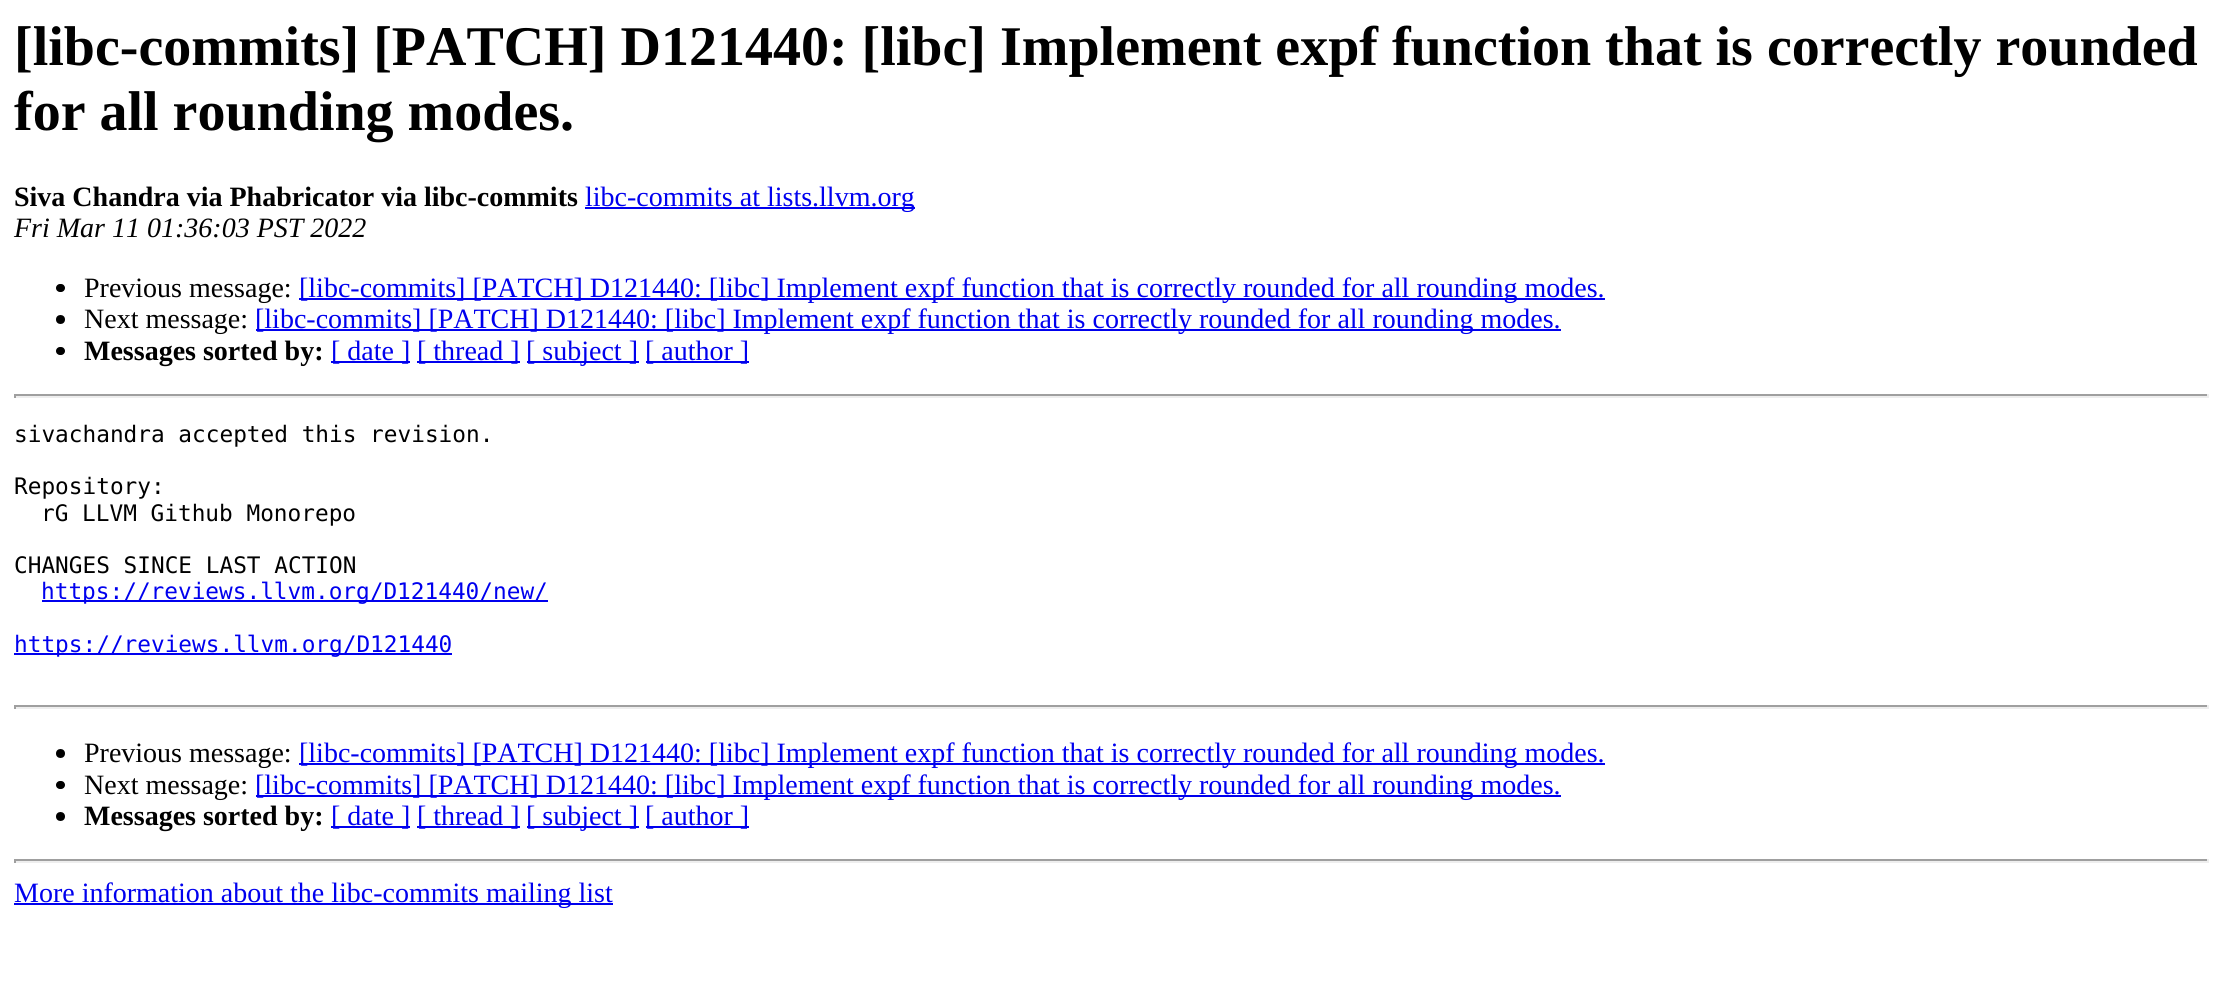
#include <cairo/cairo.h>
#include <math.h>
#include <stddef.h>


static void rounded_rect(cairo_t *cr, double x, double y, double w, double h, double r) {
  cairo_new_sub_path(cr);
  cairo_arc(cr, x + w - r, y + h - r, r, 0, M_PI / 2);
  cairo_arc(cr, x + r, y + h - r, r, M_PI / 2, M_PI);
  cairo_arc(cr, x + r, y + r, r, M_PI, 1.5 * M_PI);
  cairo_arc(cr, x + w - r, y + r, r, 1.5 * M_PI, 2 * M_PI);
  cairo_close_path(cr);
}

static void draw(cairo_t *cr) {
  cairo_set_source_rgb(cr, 1, 1, 1);
  cairo_paint(cr);
  cairo_set_source_rgb(cr, 0, 0, 238 / 255.0);
  cairo_rectangle(cr, 585, 207, 330, 2);
  cairo_fill(cr);
  cairo_set_source_rgb(cr, 0, 0, 0);
  rounded_rect(cr, 56, 284, 9, 8, 4);
  cairo_fill(cr);
  cairo_set_source_rgb(cr, 0, 0, 238 / 255.0);
  cairo_rectangle(cr, 299, 298, 1306, 2);
  cairo_fill(cr);
  cairo_set_source_rgb(cr, 0, 0, 0);
  cairo_arc(cr, 60.5, 319.5, 4.5, 0, 2 * M_PI);
  cairo_fill(cr);
  cairo_set_source_rgb(cr, 0, 0, 238 / 255.0);
  cairo_rectangle(cr, 256, 329, 1305, 2);
  cairo_fill(cr);
  cairo_set_source_rgb(cr, 0, 0, 0);
  rounded_rect(cr, 56, 347, 9, 8, 4);
  cairo_fill(cr);
  cairo_set_source_rgb(cr, 0, 0, 238 / 255.0);
  cairo_rectangle(cr, 331, 361, 79, 2);
  cairo_fill(cr);
  cairo_rectangle(cr, 417, 361, 103, 2);
  cairo_fill(cr);
  cairo_rectangle(cr, 527, 361, 112, 2);
  cairo_fill(cr);
  cairo_rectangle(cr, 646, 361, 103, 2);
  cairo_fill(cr);
  cairo_set_source_rgb(cr, 159 / 255.0, 159 / 255.0, 159 / 255.0);
  cairo_rectangle(cr, 14, 394, 2195, 2);
  cairo_fill(cr);
  cairo_set_source_rgb(cr, 238 / 255.0, 238 / 255.0, 238 / 255.0);
  cairo_rectangle(cr, 2207, 394, 2, 4);
  cairo_fill(cr);
  cairo_rectangle(cr, 14, 396, 2195, 2);
  cairo_fill(cr);
  cairo_set_source_rgb(cr, 159 / 255.0, 159 / 255.0, 159 / 255.0);
  cairo_rectangle(cr, 14, 394, 2, 4);
  cairo_fill(cr);
  cairo_set_source_rgb(cr, 0, 0, 238 / 255.0);
  cairo_rectangle(cr, 42, 600, 506, 2);
  cairo_fill(cr);
  cairo_rectangle(cr, 14, 653, 438, 2);
  cairo_fill(cr);
  cairo_set_source_rgb(cr, 159 / 255.0, 159 / 255.0, 159 / 255.0);
  cairo_rectangle(cr, 14, 705, 2195, 2);
  cairo_fill(cr);
  cairo_set_source_rgb(cr, 238 / 255.0, 238 / 255.0, 238 / 255.0);
  cairo_rectangle(cr, 2207, 705, 2, 4);
  cairo_fill(cr);
  cairo_rectangle(cr, 14, 707, 2195, 2);
  cairo_fill(cr);
  cairo_set_source_rgb(cr, 159 / 255.0, 159 / 255.0, 159 / 255.0);
  cairo_rectangle(cr, 14, 705, 2, 4);
  cairo_fill(cr);
  cairo_set_source_rgb(cr, 0, 0, 0);
  cairo_arc(cr, 60.5, 753.5, 4.5, 0, 2 * M_PI);
  cairo_fill(cr);
  cairo_set_source_rgb(cr, 0, 0, 238 / 255.0);
  cairo_rectangle(cr, 299, 763, 1306, 2);
  cairo_fill(cr);
  cairo_set_source_rgb(cr, 0, 0, 0);
  rounded_rect(cr, 56, 781, 9, 8, 4);
  cairo_fill(cr);
  cairo_set_source_rgb(cr, 0, 0, 238 / 255.0);
  cairo_rectangle(cr, 256, 795, 1305, 2);
  cairo_fill(cr);
  cairo_set_source_rgb(cr, 0, 0, 0);
  cairo_arc(cr, 60.5, 816.5, 4.5, 0, 2 * M_PI);
  cairo_fill(cr);
  cairo_set_source_rgb(cr, 0, 0, 238 / 255.0);
  cairo_rectangle(cr, 331, 826, 79, 2);
  cairo_fill(cr);
  cairo_rectangle(cr, 417, 826, 103, 2);
  cairo_fill(cr);
  cairo_rectangle(cr, 527, 826, 112, 2);
  cairo_fill(cr);
  cairo_rectangle(cr, 646, 826, 103, 2);
  cairo_fill(cr);
  cairo_set_source_rgb(cr, 159 / 255.0, 159 / 255.0, 159 / 255.0);
  cairo_rectangle(cr, 14, 859, 2195, 2);
  cairo_fill(cr);
  cairo_set_source_rgb(cr, 238 / 255.0, 238 / 255.0, 238 / 255.0);
  cairo_rectangle(cr, 2207, 859, 2, 4);
  cairo_fill(cr);
  cairo_rectangle(cr, 14, 861, 2195, 2);
  cairo_fill(cr);
  cairo_set_source_rgb(cr, 159 / 255.0, 159 / 255.0, 159 / 255.0);
  cairo_rectangle(cr, 14, 859, 2, 4);
  cairo_fill(cr);
  cairo_set_source_rgb(cr, 0, 0, 238 / 255.0);
  cairo_rectangle(cr, 14, 903, 599, 2);
  cairo_fill(cr);
  cairo_select_font_face(cr, "Liberation Serif", CAIRO_FONT_SLANT_NORMAL, CAIRO_FONT_WEIGHT_BOLD);
  cairo_set_font_size(cr, 56);
  cairo_set_source_rgb(cr, 0, 0, 0);
  cairo_move_to(cr, 14, 65);
  cairo_show_text(cr, "[libc-commits] [PATCH] D121440: [libc] Implement expf function that is correctly rounded");
  cairo_move_to(cr, 14, 130);
  cairo_show_text(cr, "for all rounding modes.");
  cairo_set_font_size(cr, 28);
  cairo_move_to(cr, 14, 206);
  cairo_show_text(cr, "Siva Chandra via Phabricator via libc-commits");
  cairo_select_font_face(cr, "Liberation Serif", CAIRO_FONT_SLANT_NORMAL, CAIRO_FONT_WEIGHT_NORMAL);
  cairo_set_source_rgb(cr, 0, 0, 238 / 255.0);
  cairo_move_to(cr, 585, 206);
  cairo_show_text(cr, "libc-commits at lists.llvm.org");
  cairo_select_font_face(cr, "Liberation Serif", CAIRO_FONT_SLANT_ITALIC, CAIRO_FONT_WEIGHT_NORMAL);
  cairo_set_source_rgb(cr, 0, 0, 0);
  cairo_move_to(cr, 14, 237);
  cairo_show_text(cr, "Fri Mar 11 01:36:03 PST 2022");
  cairo_select_font_face(cr, "Liberation Serif", CAIRO_FONT_SLANT_NORMAL, CAIRO_FONT_WEIGHT_NORMAL);
  cairo_move_to(cr, 84, 297);
  cairo_show_text(cr, "Previous message:");
  cairo_set_source_rgb(cr, 0, 0, 238 / 255.0);
  cairo_move_to(cr, 299, 297);
  cairo_show_text(cr, "[libc-commits] [PATCH] D121440: [libc] Implement expf function that is correctly rounded for all rounding modes.");
  cairo_set_source_rgb(cr, 0, 0, 0);
  cairo_move_to(cr, 84, 328);
  cairo_show_text(cr, "Next message:");
  cairo_set_source_rgb(cr, 0, 0, 238 / 255.0);
  cairo_move_to(cr, 255, 328);
  cairo_show_text(cr, "[libc-commits] [PATCH] D121440: [libc] Implement expf function that is correctly rounded for all rounding modes.");
  cairo_select_font_face(cr, "Liberation Serif", CAIRO_FONT_SLANT_NORMAL, CAIRO_FONT_WEIGHT_BOLD);
  cairo_set_source_rgb(cr, 0, 0, 0);
  cairo_move_to(cr, 84, 360);
  cairo_show_text(cr, "Messages sorted by:");
  cairo_select_font_face(cr, "Liberation Serif", CAIRO_FONT_SLANT_NORMAL, CAIRO_FONT_WEIGHT_NORMAL);
  cairo_set_source_rgb(cr, 0, 0, 238 / 255.0);
  cairo_move_to(cr, 331, 360);
  cairo_show_text(cr, "[ date ]");
  cairo_move_to(cr, 417, 360);
  cairo_show_text(cr, "[ thread ]");
  cairo_move_to(cr, 526, 360);
  cairo_show_text(cr, "[ subject ]");
  cairo_move_to(cr, 645, 360);
  cairo_show_text(cr, "[ author ]");
  cairo_select_font_face(cr, "DejaVu Sans Mono", CAIRO_FONT_SLANT_NORMAL, CAIRO_FONT_WEIGHT_NORMAL);
  cairo_set_font_size(cr, 22.75);
  cairo_set_source_rgb(cr, 0, 0, 0);
  cairo_move_to(cr, 14, 442);
  cairo_show_text(cr, "sivachandra accepted this revision.");
  cairo_move_to(cr, 14, 494);
  cairo_show_text(cr, "Repository:");
  cairo_move_to(cr, 41, 521);
  cairo_show_text(cr, "rG LLVM Github Monorepo");
  cairo_move_to(cr, 14, 573);
  cairo_show_text(cr, "CHANGES SINCE LAST ACTION");
  cairo_set_source_rgb(cr, 0, 0, 238 / 255.0);
  cairo_move_to(cr, 41, 599);
  cairo_show_text(cr, "https://reviews.llvm.org/D121440/new/");
  cairo_move_to(cr, 14, 652);
  cairo_show_text(cr, "https://reviews.llvm.org/D121440");
  cairo_select_font_face(cr, "Liberation Serif", CAIRO_FONT_SLANT_NORMAL, CAIRO_FONT_WEIGHT_NORMAL);
  cairo_set_font_size(cr, 28);
  cairo_set_source_rgb(cr, 0, 0, 0);
  cairo_move_to(cr, 84, 762);
  cairo_show_text(cr, "Previous message:");
  cairo_set_source_rgb(cr, 0, 0, 238 / 255.0);
  cairo_move_to(cr, 299, 762);
  cairo_show_text(cr, "[libc-commits] [PATCH] D121440: [libc] Implement expf function that is correctly rounded for all rounding modes.");
  cairo_set_source_rgb(cr, 0, 0, 0);
  cairo_move_to(cr, 84, 794);
  cairo_show_text(cr, "Next message:");
  cairo_set_source_rgb(cr, 0, 0, 238 / 255.0);
  cairo_move_to(cr, 255, 794);
  cairo_show_text(cr, "[libc-commits] [PATCH] D121440: [libc] Implement expf function that is correctly rounded for all rounding modes.");
  cairo_select_font_face(cr, "Liberation Serif", CAIRO_FONT_SLANT_NORMAL, CAIRO_FONT_WEIGHT_BOLD);
  cairo_set_source_rgb(cr, 0, 0, 0);
  cairo_move_to(cr, 84, 825);
  cairo_show_text(cr, "Messages sorted by:");
  cairo_select_font_face(cr, "Liberation Serif", CAIRO_FONT_SLANT_NORMAL, CAIRO_FONT_WEIGHT_NORMAL);
  cairo_set_source_rgb(cr, 0, 0, 238 / 255.0);
  cairo_move_to(cr, 331, 825);
  cairo_show_text(cr, "[ date ]");
  cairo_move_to(cr, 417, 825);
  cairo_show_text(cr, "[ thread ]");
  cairo_move_to(cr, 526, 825);
  cairo_show_text(cr, "[ subject ]");
  cairo_move_to(cr, 645, 825);
  cairo_show_text(cr, "[ author ]");
  cairo_move_to(cr, 14, 902);
  cairo_show_text(cr, "More information about the libc-commits mailing list");
}

int main(void) {
  cairo_surface_t *surface = cairo_image_surface_create(CAIRO_FORMAT_RGB24, 2222, 995);
  cairo_t *cr = cairo_create(surface);
  cairo_font_options_t *options = cairo_font_options_create();
  cairo_font_options_set_hint_metrics(options, CAIRO_HINT_METRICS_OFF);
  cairo_font_options_set_hint_style(options, CAIRO_HINT_STYLE_NONE);
  cairo_set_font_options(cr, options);
  cairo_set_miter_limit(cr, 4);
  draw(cr);
  cairo_surface_write_to_png(surface, "out.png");
  cairo_font_options_destroy(options);
  cairo_destroy(cr);
  cairo_surface_destroy(surface);
  return 0;
}
